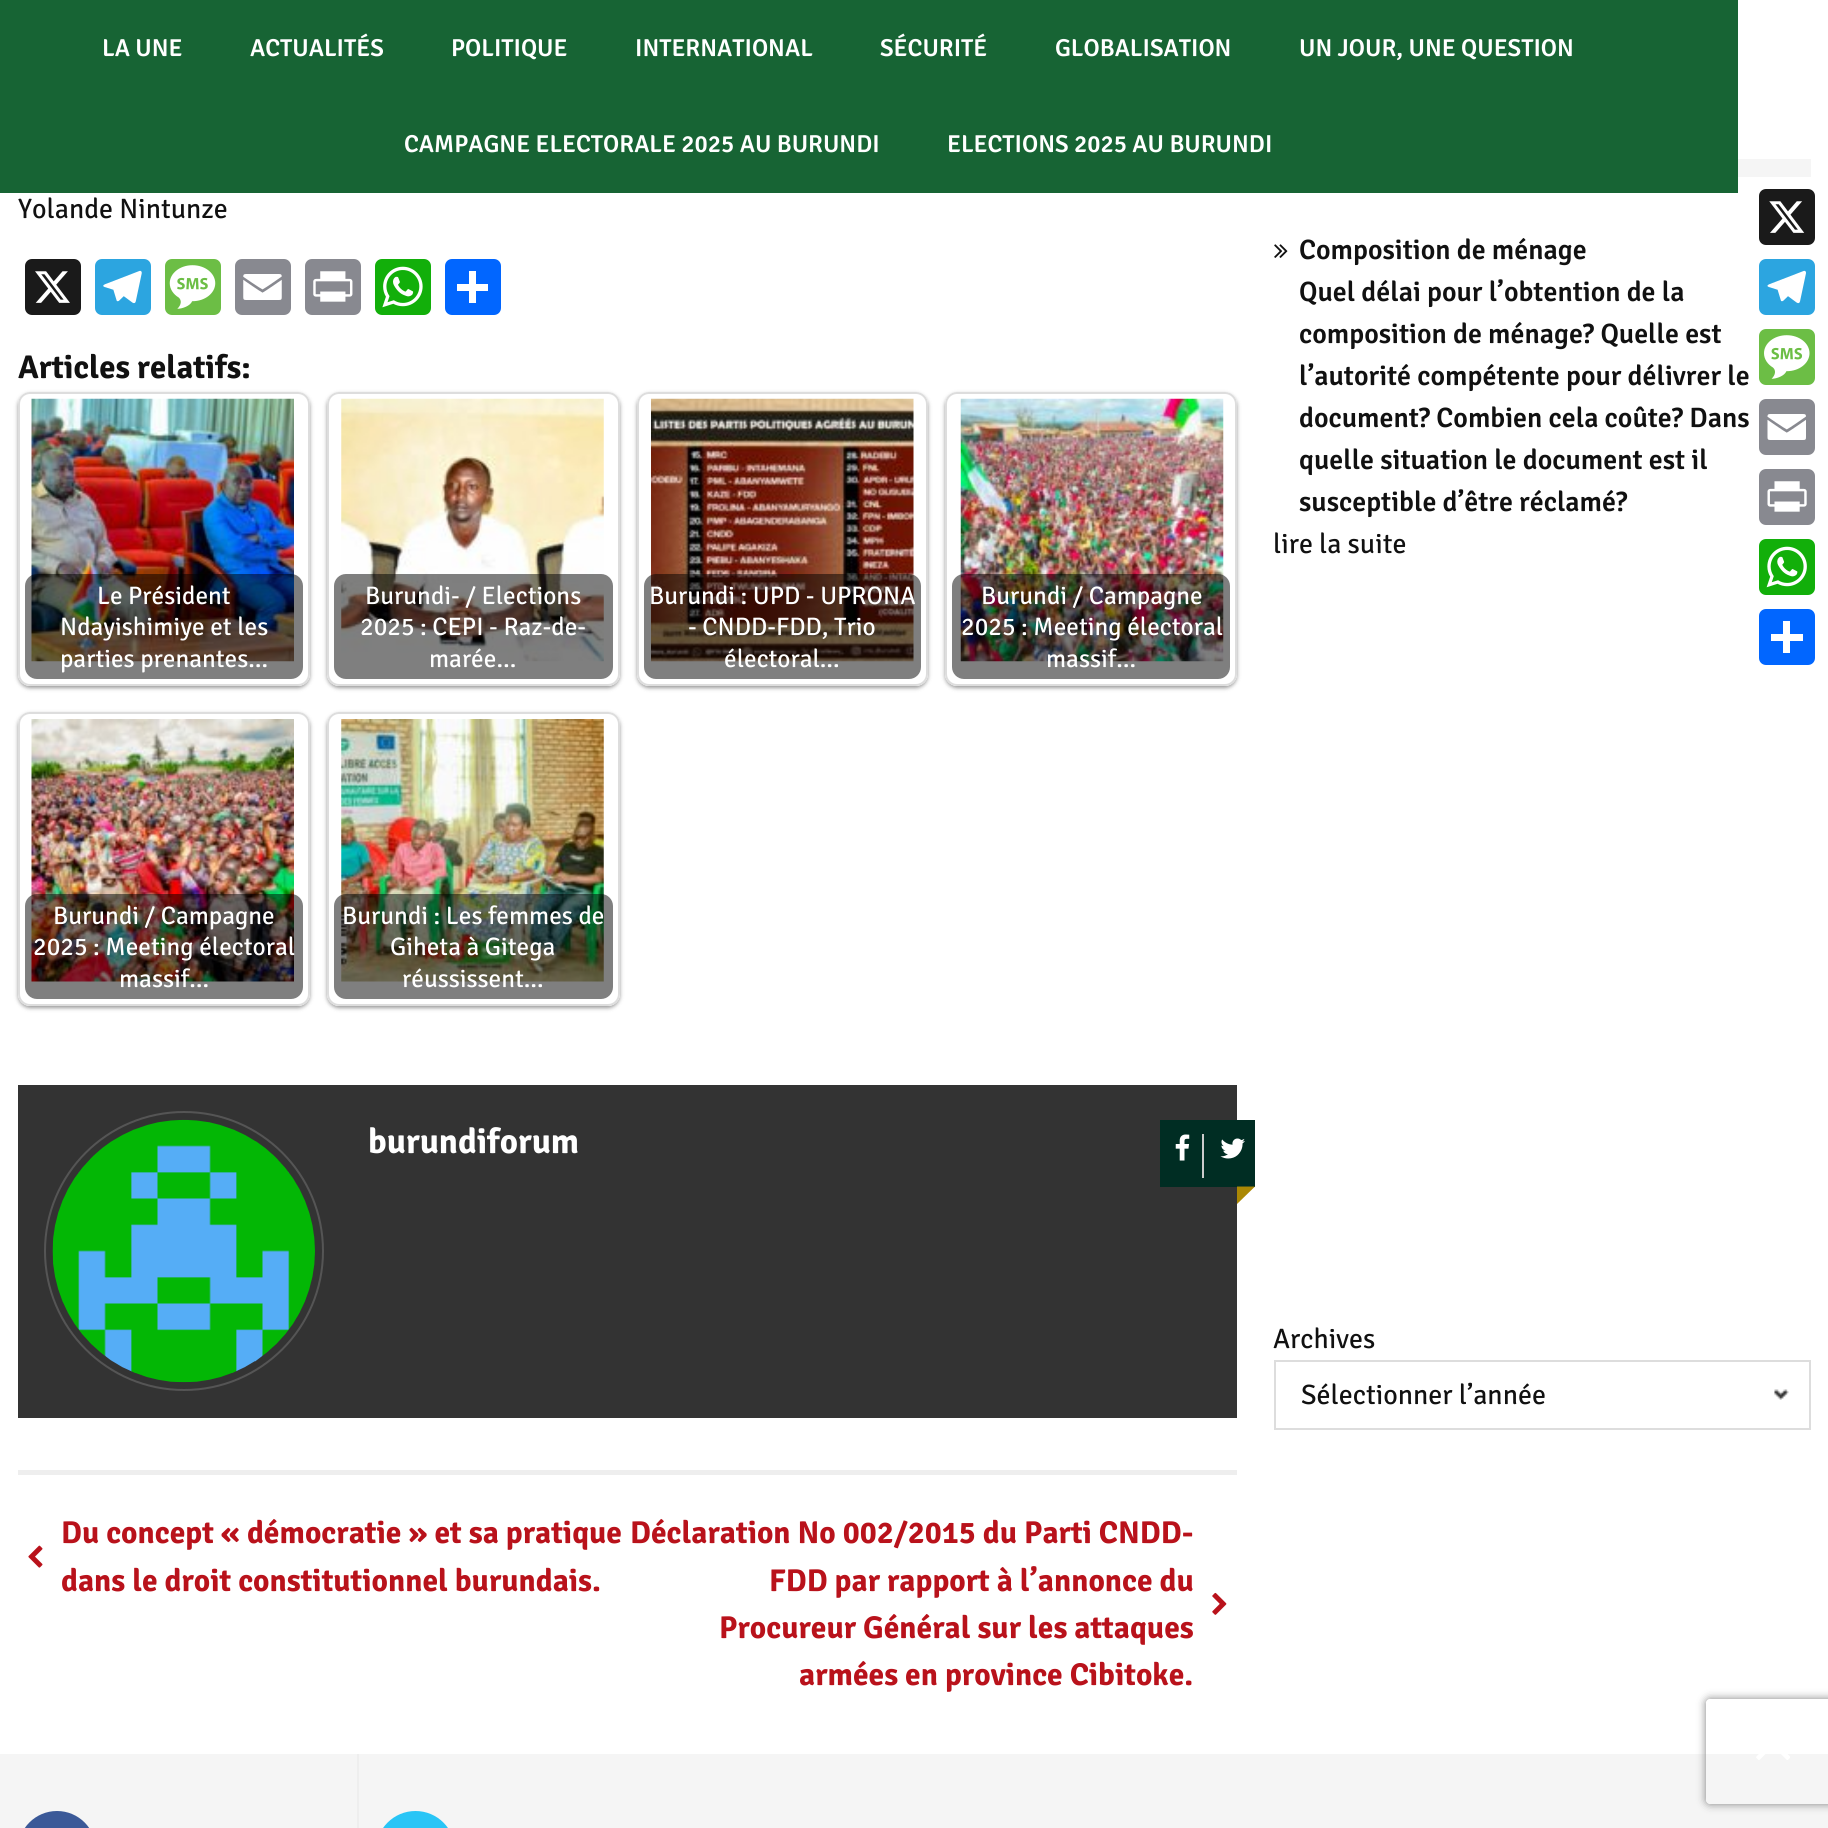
#include <cairo/cairo.h>
#include <math.h>
#include <stddef.h>


static void rounded_rect(cairo_t *cr, double x, double y, double w, double h, double r) {
  cairo_new_sub_path(cr);
  cairo_arc(cr, x + w - r, y + h - r, r, 0, M_PI / 2);
  cairo_arc(cr, x + r, y + h - r, r, M_PI / 2, M_PI);
  cairo_arc(cr, x + r, y + r, r, M_PI, 1.5 * M_PI);
  cairo_arc(cr, x + w - r, y + r, r, 1.5 * M_PI, 2 * M_PI);
  cairo_close_path(cr);
}

static void draw_shadow(cairo_t *cr, double x, double y, double w, double h, double r, double blur, double alpha) {
  cairo_push_group_with_content(cr, CAIRO_CONTENT_ALPHA);
  cairo_set_operator(cr, CAIRO_OPERATOR_SOURCE);
  for (int i = 15; i >= -15 && fmin(w, h) + blur * i / 3 > 0; i -= 2) {
    double e = blur * i / 6;
    cairo_set_source_rgba(cr, 0, 0, 0, alpha * erfc((i - 1) / 8.5) / 2);
    rounded_rect(cr, x - e, y - e, w + 2 * e, h + 2 * e, fmax(0, fmin(r + e + blur * .6, fmin(w, h) / 2 + e)));
    cairo_fill(cr);
  }
  cairo_pattern_t *soft = cairo_pop_group(cr);
  cairo_mask(cr, soft);
  cairo_pattern_destroy(soft);
}

static void draw_image(cairo_t *cr, const char *path, double x, double y, double w, double h) {
  cairo_surface_t *image = cairo_image_surface_create_from_png(path);
  cairo_save(cr);
  cairo_set_source_surface(cr, image, x, y);
  cairo_rectangle(cr, x, y, w, h);
  cairo_fill(cr);
  cairo_restore(cr);
  cairo_surface_destroy(image);
}

static void draw(cairo_t *cr) {
  cairo_set_source_rgb(cr, 1, 1, 1);
  cairo_paint(cr);
  cairo_set_source_rgb(cr, 23 / 255.0, 100 / 255.0, 52 / 255.0);
  cairo_rectangle(cr, 0, 0, 1738, 193);
  cairo_fill(cr);
  cairo_set_source_rgb(cr, 26 / 255.0, 26 / 255.0, 26 / 255.0);
  rounded_rect(cr, 25, 259, 56, 56, 7);
  cairo_fill(cr);
  draw_image(cr, "images/1.png", 35, 271, 35, 32);
  cairo_set_source_rgb(cr, 44 / 255.0, 165 / 255.0, 224 / 255.0);
  rounded_rect(cr, 95, 259, 56, 56, 7);
  cairo_fill(cr);
  draw_image(cr, "images/2.png", 103, 270, 39, 34);
  cairo_set_source_rgb(cr, 108 / 255.0, 190 / 255.0, 69 / 255.0);
  rounded_rect(cr, 165, 259, 56, 56, 7);
  cairo_fill(cr);
  draw_image(cr, "images/3.png", 169, 265, 47, 44);
  cairo_set_source_rgb(cr, 136 / 255.0, 137 / 255.0, 144 / 255.0);
  rounded_rect(cr, 235, 259, 56, 56, 7);
  cairo_fill(cr);
  draw_image(cr, "images/4.png", 243, 274, 39, 26);
  rounded_rect(cr, 305, 259, 56, 56, 7);
  cairo_fill(cr);
  draw_image(cr, "images/5.png", 313, 271, 40, 31);
  cairo_set_source_rgb(cr, 18 / 255.0, 175 / 255.0, 10 / 255.0);
  rounded_rect(cr, 375, 259, 56, 56, 7);
  cairo_fill(cr);
  draw_image(cr, "images/6.png", 382, 266, 41, 42);
  cairo_set_source_rgb(cr, 1 / 255.0, 102 / 255.0, 1);
  rounded_rect(cr, 445, 259, 56, 56, 7);
  cairo_fill(cr);
  cairo_set_source_rgb(cr, 1, 1, 1);
  cairo_rectangle(cr, 469, 271, 7, 32);
  cairo_fill(cr);
  cairo_rectangle(cr, 457, 284, 31, 7);
  cairo_fill(cr);
  cairo_save(cr);
  cairo_set_fill_rule(cr, CAIRO_FILL_RULE_EVEN_ODD);
  cairo_new_path(cr);
  cairo_move_to(cr, 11, 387);
  cairo_line_to(cr, 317, 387);
  cairo_line_to(cr, 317, 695);
  cairo_line_to(cr, 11, 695);
  cairo_close_path(cr);
  cairo_move_to(cr, 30, 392);
  cairo_line_to(cr, 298, 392);
  cairo_curve_to(cr, 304.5, 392, 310, 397.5, 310, 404);
  cairo_line_to(cr, 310, 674);
  cairo_curve_to(cr, 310, 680.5, 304.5, 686, 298, 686);
  cairo_line_to(cr, 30, 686);
  cairo_curve_to(cr, 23.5, 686, 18, 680.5, 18, 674);
  cairo_line_to(cr, 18, 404);
  cairo_curve_to(cr, 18, 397.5, 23.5, 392, 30, 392);
  cairo_close_path(cr);
  cairo_clip(cr);
  cairo_set_source_rgb(cr, 0, 0, 0);
  draw_shadow(cr, 18, 394, 292, 294, 12, 2, 0.4);
  cairo_restore(cr);
  rounded_rect(cr, 19, 393, 290, 292, 11);
  cairo_set_source_rgb(cr, 221 / 255.0, 221 / 255.0, 221 / 255.0);
  cairo_stroke(cr);
  draw_image(cr, "images/7.png", 31, 398, 263, 264);
  cairo_set_source_rgba(cr, 0, 0, 0, 0.5);
  rounded_rect(cr, 25, 574, 278, 105, 12);
  cairo_fill(cr);
  cairo_save(cr);
  cairo_set_fill_rule(cr, CAIRO_FILL_RULE_EVEN_ODD);
  cairo_new_path(cr);
  cairo_move_to(cr, 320, 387);
  cairo_line_to(cr, 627, 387);
  cairo_line_to(cr, 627, 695);
  cairo_line_to(cr, 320, 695);
  cairo_close_path(cr);
  cairo_move_to(cr, 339, 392);
  cairo_line_to(cr, 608, 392);
  cairo_curve_to(cr, 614.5, 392, 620, 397.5, 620, 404);
  cairo_line_to(cr, 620, 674);
  cairo_curve_to(cr, 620, 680.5, 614.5, 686, 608, 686);
  cairo_line_to(cr, 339, 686);
  cairo_curve_to(cr, 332.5, 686, 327, 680.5, 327, 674);
  cairo_line_to(cr, 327, 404);
  cairo_curve_to(cr, 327, 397.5, 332.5, 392, 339, 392);
  cairo_close_path(cr);
  cairo_clip(cr);
  cairo_set_source_rgb(cr, 0, 0, 0);
  draw_shadow(cr, 327, 394, 293, 294, 12, 2, 0.4);
  cairo_restore(cr);
  rounded_rect(cr, 328, 393, 291, 292, 11);
  cairo_set_source_rgb(cr, 221 / 255.0, 221 / 255.0, 221 / 255.0);
  cairo_stroke(cr);
  draw_image(cr, "images/8.png", 341, 398, 263, 264);
  cairo_set_source_rgba(cr, 0, 0, 0, 0.5);
  rounded_rect(cr, 334, 574, 279, 105, 12);
  cairo_fill(cr);
  cairo_save(cr);
  cairo_set_fill_rule(cr, CAIRO_FILL_RULE_EVEN_ODD);
  cairo_new_path(cr);
  cairo_move_to(cr, 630, 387);
  cairo_line_to(cr, 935, 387);
  cairo_line_to(cr, 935, 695);
  cairo_line_to(cr, 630, 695);
  cairo_close_path(cr);
  cairo_move_to(cr, 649, 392);
  cairo_line_to(cr, 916, 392);
  cairo_curve_to(cr, 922.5, 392, 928, 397.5, 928, 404);
  cairo_line_to(cr, 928, 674);
  cairo_curve_to(cr, 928, 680.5, 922.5, 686, 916, 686);
  cairo_line_to(cr, 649, 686);
  cairo_curve_to(cr, 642.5, 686, 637, 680.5, 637, 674);
  cairo_line_to(cr, 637, 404);
  cairo_curve_to(cr, 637, 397.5, 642.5, 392, 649, 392);
  cairo_close_path(cr);
  cairo_clip(cr);
  cairo_set_source_rgb(cr, 0, 0, 0);
  draw_shadow(cr, 637, 394, 291, 294, 12, 2, 0.4);
  cairo_restore(cr);
  rounded_rect(cr, 638, 393, 289, 292, 11);
  cairo_set_source_rgb(cr, 221 / 255.0, 221 / 255.0, 221 / 255.0);
  cairo_stroke(cr);
  draw_image(cr, "images/9.png", 651, 398, 263, 264);
  cairo_set_source_rgba(cr, 0, 0, 0, 0.5);
  rounded_rect(cr, 644, 574, 277, 105, 12);
  cairo_fill(cr);
  cairo_save(cr);
  cairo_set_fill_rule(cr, CAIRO_FILL_RULE_EVEN_ODD);
  cairo_new_path(cr);
  cairo_move_to(cr, 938, 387);
  cairo_line_to(cr, 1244, 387);
  cairo_line_to(cr, 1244, 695);
  cairo_line_to(cr, 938, 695);
  cairo_close_path(cr);
  cairo_move_to(cr, 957, 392);
  cairo_line_to(cr, 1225, 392);
  cairo_curve_to(cr, 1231.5, 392, 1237, 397.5, 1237, 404);
  cairo_line_to(cr, 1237, 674);
  cairo_curve_to(cr, 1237, 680.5, 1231.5, 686, 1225, 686);
  cairo_line_to(cr, 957, 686);
  cairo_curve_to(cr, 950.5, 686, 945, 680.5, 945, 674);
  cairo_line_to(cr, 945, 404);
  cairo_curve_to(cr, 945, 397.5, 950.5, 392, 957, 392);
  cairo_close_path(cr);
  cairo_clip(cr);
  cairo_set_source_rgb(cr, 0, 0, 0);
  draw_shadow(cr, 945, 394, 292, 294, 12, 2, 0.4);
  cairo_restore(cr);
  rounded_rect(cr, 946, 393, 290, 292, 11);
  cairo_set_source_rgb(cr, 221 / 255.0, 221 / 255.0, 221 / 255.0);
  cairo_stroke(cr);
  draw_image(cr, "images/10.png", 960, 398, 264, 264);
  cairo_set_source_rgba(cr, 0, 0, 0, 0.5);
  rounded_rect(cr, 952, 574, 278, 105, 12);
  cairo_fill(cr);
  cairo_save(cr);
  cairo_set_fill_rule(cr, CAIRO_FILL_RULE_EVEN_ODD);
  cairo_new_path(cr);
  cairo_move_to(cr, 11, 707);
  cairo_line_to(cr, 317, 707);
  cairo_line_to(cr, 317, 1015);
  cairo_line_to(cr, 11, 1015);
  cairo_close_path(cr);
  cairo_move_to(cr, 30, 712);
  cairo_line_to(cr, 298, 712);
  cairo_curve_to(cr, 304.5, 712, 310, 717.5, 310, 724);
  cairo_line_to(cr, 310, 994);
  cairo_curve_to(cr, 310, 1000.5, 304.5, 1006, 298, 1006);
  cairo_line_to(cr, 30, 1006);
  cairo_curve_to(cr, 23.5, 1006, 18, 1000.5, 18, 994);
  cairo_line_to(cr, 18, 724);
  cairo_curve_to(cr, 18, 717.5, 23.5, 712, 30, 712);
  cairo_close_path(cr);
  cairo_clip(cr);
  cairo_set_source_rgb(cr, 0, 0, 0);
  draw_shadow(cr, 18, 714, 292, 294, 12, 2, 0.4);
  cairo_restore(cr);
  rounded_rect(cr, 19, 713, 290, 292, 11);
  cairo_set_source_rgb(cr, 221 / 255.0, 221 / 255.0, 221 / 255.0);
  cairo_stroke(cr);
  draw_image(cr, "images/11.png", 31, 719, 263, 263);
  cairo_set_source_rgba(cr, 0, 0, 0, 0.5);
  rounded_rect(cr, 25, 894, 278, 105, 12);
  cairo_fill(cr);
  cairo_save(cr);
  cairo_set_fill_rule(cr, CAIRO_FILL_RULE_EVEN_ODD);
  cairo_new_path(cr);
  cairo_move_to(cr, 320, 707);
  cairo_line_to(cr, 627, 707);
  cairo_line_to(cr, 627, 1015);
  cairo_line_to(cr, 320, 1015);
  cairo_close_path(cr);
  cairo_move_to(cr, 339, 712);
  cairo_line_to(cr, 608, 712);
  cairo_curve_to(cr, 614.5, 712, 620, 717.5, 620, 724);
  cairo_line_to(cr, 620, 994);
  cairo_curve_to(cr, 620, 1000.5, 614.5, 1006, 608, 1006);
  cairo_line_to(cr, 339, 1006);
  cairo_curve_to(cr, 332.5, 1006, 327, 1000.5, 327, 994);
  cairo_line_to(cr, 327, 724);
  cairo_curve_to(cr, 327, 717.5, 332.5, 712, 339, 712);
  cairo_close_path(cr);
  cairo_clip(cr);
  cairo_set_source_rgb(cr, 0, 0, 0);
  draw_shadow(cr, 327, 714, 293, 294, 12, 2, 0.4);
  cairo_restore(cr);
  rounded_rect(cr, 328, 713, 291, 292, 11);
  cairo_set_source_rgb(cr, 221 / 255.0, 221 / 255.0, 221 / 255.0);
  cairo_stroke(cr);
  draw_image(cr, "images/12.png", 341, 719, 263, 263);
  cairo_set_source_rgba(cr, 0, 0, 0, 0.5);
  rounded_rect(cr, 334, 894, 279, 105, 12);
  cairo_fill(cr);
  cairo_set_source_rgb(cr, 51 / 255.0, 51 / 255.0, 51 / 255.0);
  cairo_rectangle(cr, 18, 1085, 1219, 333);
  cairo_fill(cr);
  draw_image(cr, "images/13.png", 52, 1119, 263, 264);
  cairo_arc(cr, 184, 1251, 139, 0, 2 * M_PI);
  cairo_set_source_rgb(cr, 85 / 255.0, 85 / 255.0, 85 / 255.0);
  cairo_stroke(cr);
  cairo_set_source_rgb(cr, 0, 45 / 255.0, 35 / 255.0);
  cairo_rectangle(cr, 1160, 1120, 95, 67);
  cairo_fill(cr);
  cairo_set_source_rgb(cr, 204 / 255.0, 204 / 255.0, 204 / 255.0);
  cairo_rectangle(cr, 1202, 1134, 2, 44);
  cairo_fill(cr);
  draw_image(cr, "images/14.png", 1175, 1134, 15, 27);
  draw_image(cr, "images/15.png", 1220, 1138, 25, 21);
  cairo_set_source_rgb(cr, 171 / 255.0, 136 / 255.0, 4 / 255.0);
  cairo_new_path(cr);
  cairo_move_to(cr, 1237, 1186.5);
  cairo_line_to(cr, 1255, 1186.5);
  cairo_line_to(cr, 1237, 1204);
  cairo_close_path(cr);
  cairo_fill(cr);
  cairo_set_source_rgb(cr, 238 / 255.0, 238 / 255.0, 238 / 255.0);
  cairo_rectangle(cr, 18, 1470, 1219, 5);
  cairo_fill(cr);
  draw_image(cr, "images/16.png", 28, 1545, 15, 23);
  draw_image(cr, "images/17.png", 1212, 1592, 15, 23);
  cairo_set_source_rgb(cr, 245 / 255.0, 245 / 255.0, 245 / 255.0);
  cairo_rectangle(cr, 1738, 159, 73, 18);
  cairo_fill(cr);
  draw_image(cr, "images/18.png", 1274, 244, 14, 14);
  draw_image(cr, "images/19.png", 1774, 1389, 15, 11);
  cairo_rectangle(cr, 1275, 1361, 535, 68);
  cairo_set_source_rgb(cr, 221 / 255.0, 221 / 255.0, 221 / 255.0);
  cairo_stroke(cr);
  cairo_set_source_rgb(cr, 245 / 255.0, 245 / 255.0, 245 / 255.0);
  cairo_rectangle(cr, 0, 1754, 1828, 74);
  cairo_fill(cr);
  cairo_set_source_rgb(cr, 238 / 255.0, 238 / 255.0, 238 / 255.0);
  cairo_rectangle(cr, 357, 1754, 2, 74);
  cairo_fill(cr);
  cairo_set_source_rgb(cr, 59 / 255.0, 89 / 255.0, 152 / 255.0);
  rounded_rect(cr, 18, 1811, 78, 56, 39);
  cairo_fill(cr);
  cairo_set_source_rgb(cr, 41 / 255.0, 197 / 255.0, 246 / 255.0);
  rounded_rect(cr, 376, 1811, 79, 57, 39.5);
  cairo_fill(cr);
  cairo_save(cr);
  cairo_set_fill_rule(cr, CAIRO_FILL_RULE_EVEN_ODD);
  cairo_new_path(cr);
  cairo_move_to(cr, 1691, 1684);
  cairo_line_to(cr, 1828, 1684);
  cairo_line_to(cr, 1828, 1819);
  cairo_line_to(cr, 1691, 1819);
  cairo_close_path(cr);
  cairo_move_to(cr, 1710, 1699);
  cairo_line_to(cr, 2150, 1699);
  cairo_curve_to(cr, 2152, 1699, 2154, 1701, 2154, 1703);
  cairo_line_to(cr, 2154, 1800);
  cairo_curve_to(cr, 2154, 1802, 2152, 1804, 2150, 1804);
  cairo_line_to(cr, 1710, 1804);
  cairo_curve_to(cr, 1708, 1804, 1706, 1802, 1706, 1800);
  cairo_line_to(cr, 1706, 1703);
  cairo_curve_to(cr, 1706, 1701, 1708, 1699, 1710, 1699);
  cairo_close_path(cr);
  cairo_clip(cr);
  cairo_set_source_rgb(cr, 128 / 255.0, 128 / 255.0, 128 / 255.0);
  draw_shadow(cr, 1706, 1699, 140, 105, 4, 4.5, 1);
  cairo_restore(cr);
  draw_image(cr, "images/20.png", 1756, 1754, 34, 6);
  cairo_set_source_rgb(cr, 26 / 255.0, 26 / 255.0, 26 / 255.0);
  rounded_rect(cr, 1759, 189, 56, 56, 7);
  cairo_fill(cr);
  draw_image(cr, "images/21.png", 1769, 201, 36, 32);
  cairo_set_source_rgb(cr, 44 / 255.0, 165 / 255.0, 224 / 255.0);
  rounded_rect(cr, 1759, 259, 56, 56, 7);
  cairo_fill(cr);
  draw_image(cr, "images/22.png", 1767, 270, 39, 34);
  cairo_set_source_rgb(cr, 108 / 255.0, 190 / 255.0, 69 / 255.0);
  rounded_rect(cr, 1759, 329, 56, 56, 7);
  cairo_fill(cr);
  draw_image(cr, "images/23.png", 1764, 335, 46, 44);
  cairo_set_source_rgb(cr, 136 / 255.0, 137 / 255.0, 144 / 255.0);
  rounded_rect(cr, 1759, 399, 56, 56, 7);
  cairo_fill(cr);
  draw_image(cr, "images/24.png", 1767, 414, 39, 26);
  rounded_rect(cr, 1759, 469, 56, 56, 7);
  cairo_fill(cr);
  draw_image(cr, "images/25.png", 1767, 481, 40, 31);
  cairo_set_source_rgb(cr, 18 / 255.0, 175 / 255.0, 10 / 255.0);
  rounded_rect(cr, 1759, 539, 56, 56, 7);
  cairo_fill(cr);
  draw_image(cr, "images/26.png", 1766, 546, 41, 42);
  cairo_set_source_rgb(cr, 1 / 255.0, 102 / 255.0, 1);
  rounded_rect(cr, 1759, 609, 56, 56, 7);
  cairo_fill(cr);
  cairo_set_source_rgb(cr, 1, 1, 1);
  cairo_rectangle(cr, 1783, 621, 7, 32);
  cairo_fill(cr);
  cairo_rectangle(cr, 1771, 634, 32, 7);
  cairo_fill(cr);
  cairo_select_font_face(cr, "Signika Negative SemiBold", CAIRO_FONT_SLANT_NORMAL, CAIRO_FONT_WEIGHT_NORMAL);
  cairo_set_font_size(cr, 24.5);
  cairo_move_to(cr, 102, 56);
  cairo_show_text(cr, "LA UNE");
  cairo_move_to(cr, 250, 56);
  cairo_show_text(cr, "ACTUALITÉS");
  cairo_move_to(cr, 451, 56);
  cairo_show_text(cr, "POLITIQUE");
  cairo_move_to(cr, 635, 56);
  cairo_show_text(cr, "INTERNATIONAL");
  cairo_move_to(cr, 880, 56);
  cairo_show_text(cr, "SÉCURITÉ");
  cairo_move_to(cr, 1055, 56);
  cairo_show_text(cr, "GLOBALISATION");
  cairo_move_to(cr, 1299, 56);
  cairo_show_text(cr, "UN JOUR, UNE QUESTION");
  cairo_move_to(cr, 404, 152);
  cairo_show_text(cr, "CAMPAGNE ELECTORALE 2025 AU BURUNDI");
  cairo_move_to(cr, 947, 152);
  cairo_show_text(cr, "ELECTIONS 2025 AU BURUNDI");
  cairo_select_font_face(cr, "Signika Negative", CAIRO_FONT_SLANT_NORMAL, CAIRO_FONT_WEIGHT_NORMAL);
  cairo_set_font_size(cr, 28);
  cairo_set_source_rgb(cr, 17 / 255.0, 17 / 255.0, 17 / 255.0);
  cairo_move_to(cr, 18, 218);
  cairo_show_text(cr, "Yolande Nintunze");
  cairo_select_font_face(cr, "Signika Negative", CAIRO_FONT_SLANT_NORMAL, CAIRO_FONT_WEIGHT_BOLD);
  cairo_set_font_size(cr, 32.75);
  cairo_move_to(cr, 18, 378);
  cairo_show_text(cr, "Articles relatifs:");
  cairo_select_font_face(cr, "Signika Negative", CAIRO_FONT_SLANT_NORMAL, CAIRO_FONT_WEIGHT_NORMAL);
  cairo_set_font_size(cr, 25.25);
  cairo_set_source_rgb(cr, 1, 1, 1);
  cairo_move_to(cr, 97, 604);
  cairo_show_text(cr, "Le Président");
  cairo_move_to(cr, 60, 635);
  cairo_show_text(cr, "Ndayishimiye et les");
  cairo_move_to(cr, 60, 667);
  cairo_show_text(cr, "parties prenantes…");
  cairo_move_to(cr, 365, 604);
  cairo_show_text(cr, "Burundi- / Elections");
  cairo_move_to(cr, 360, 635);
  cairo_show_text(cr, "2025 : CEPI - Raz-de-");
  cairo_move_to(cr, 429, 667);
  cairo_show_text(cr, "marée…");
  cairo_move_to(cr, 649, 604);
  cairo_show_text(cr, "Burundi : UPD - UPRONA");
  cairo_move_to(cr, 688, 635);
  cairo_show_text(cr, "- CNDD-FDD, Trio");
  cairo_move_to(cr, 724, 667);
  cairo_show_text(cr, "électoral…");
  cairo_move_to(cr, 981, 604);
  cairo_show_text(cr, "Burundi / Campagne");
  cairo_move_to(cr, 961, 635);
  cairo_show_text(cr, "2025 : Meeting électoral");
  cairo_move_to(cr, 1046, 667);
  cairo_show_text(cr, "massif…");
  cairo_move_to(cr, 53, 924);
  cairo_show_text(cr, "Burundi / Campagne");
  cairo_move_to(cr, 33, 955);
  cairo_show_text(cr, "2025 : Meeting électoral");
  cairo_move_to(cr, 119, 987);
  cairo_show_text(cr, "massif…");
  cairo_move_to(cr, 342, 924);
  cairo_show_text(cr, "Burundi : Les femmes de");
  cairo_move_to(cr, 390, 955);
  cairo_show_text(cr, "Giheta à Gitega");
  cairo_move_to(cr, 402, 987);
  cairo_show_text(cr, "réussissent…");
  cairo_select_font_face(cr, "Signika Negative", CAIRO_FONT_SLANT_NORMAL, CAIRO_FONT_WEIGHT_BOLD);
  cairo_set_font_size(cr, 35);
  cairo_move_to(cr, 368, 1153);
  cairo_show_text(cr, "burundiforum");
  cairo_set_font_size(cr, 31.5);
  cairo_set_source_rgb(cr, 185 / 255.0, 18 / 255.0, 27 / 255.0);
  cairo_move_to(cr, 61, 1543);
  cairo_show_text(cr, "Du concept « démocratie » et sa pratique");
  cairo_move_to(cr, 61, 1591);
  cairo_show_text(cr, "dans le droit constitutionnel burundais.");
  cairo_move_to(cr, 630, 1543);
  cairo_show_text(cr, "Déclaration No 002/2015 du Parti CNDD-");
  cairo_move_to(cr, 769, 1591);
  cairo_show_text(cr, "FDD par rapport à l’annonce du");
  cairo_move_to(cr, 719, 1638);
  cairo_show_text(cr, "Procureur Général sur les attaques");
  cairo_move_to(cr, 799, 1685);
  cairo_show_text(cr, "armées en province Cibitoke.");
  cairo_select_font_face(cr, "Signika Negative SemiBold", CAIRO_FONT_SLANT_NORMAL, CAIRO_FONT_WEIGHT_NORMAL);
  cairo_set_font_size(cr, 28);
  cairo_set_source_rgb(cr, 17 / 255.0, 17 / 255.0, 17 / 255.0);
  cairo_move_to(cr, 1299, 259);
  cairo_show_text(cr, "Composition de ménage");
  cairo_move_to(cr, 1299, 301);
  cairo_show_text(cr, "Quel délai pour l’obtention de la");
  cairo_move_to(cr, 1299, 343);
  cairo_show_text(cr, "composition de ménage? Quelle est");
  cairo_move_to(cr, 1299, 385);
  cairo_show_text(cr, "l’autorité compétente pour délivrer le");
  cairo_move_to(cr, 1299, 427);
  cairo_show_text(cr, "document? Combien cela coûte? Dans");
  cairo_move_to(cr, 1299, 469);
  cairo_show_text(cr, "quelle situation le document est il");
  cairo_move_to(cr, 1299, 511);
  cairo_show_text(cr, "susceptible d’être réclamé?");
  cairo_select_font_face(cr, "Signika Negative", CAIRO_FONT_SLANT_NORMAL, CAIRO_FONT_WEIGHT_NORMAL);
  cairo_move_to(cr, 1273, 553);
  cairo_show_text(cr, "lire la suite");
  cairo_move_to(cr, 1273, 1348);
  cairo_show_text(cr, "Archives");
  cairo_move_to(cr, 1301, 1404);
  cairo_show_text(cr, "Sélectionner l’année");
}

int main(void) {
  cairo_surface_t *surface = cairo_image_surface_create(CAIRO_FORMAT_RGB24, 1828, 1828);
  cairo_t *cr = cairo_create(surface);
  cairo_font_options_t *options = cairo_font_options_create();
  cairo_font_options_set_hint_metrics(options, CAIRO_HINT_METRICS_OFF);
  cairo_font_options_set_hint_style(options, CAIRO_HINT_STYLE_NONE);
  cairo_set_font_options(cr, options);
  cairo_set_miter_limit(cr, 4);
  draw(cr);
  cairo_surface_write_to_png(surface, "out.png");
  cairo_font_options_destroy(options);
  cairo_destroy(cr);
  cairo_surface_destroy(surface);
  return 0;
}
